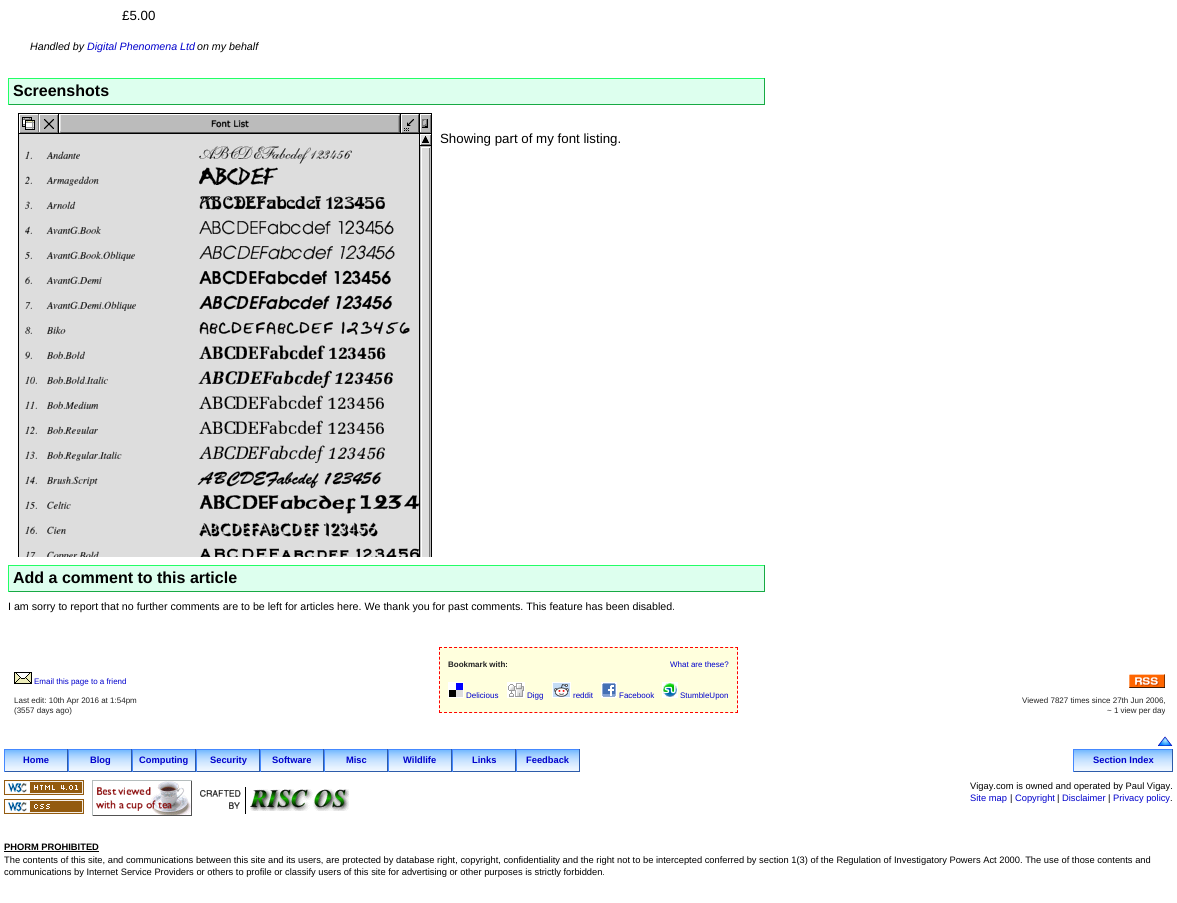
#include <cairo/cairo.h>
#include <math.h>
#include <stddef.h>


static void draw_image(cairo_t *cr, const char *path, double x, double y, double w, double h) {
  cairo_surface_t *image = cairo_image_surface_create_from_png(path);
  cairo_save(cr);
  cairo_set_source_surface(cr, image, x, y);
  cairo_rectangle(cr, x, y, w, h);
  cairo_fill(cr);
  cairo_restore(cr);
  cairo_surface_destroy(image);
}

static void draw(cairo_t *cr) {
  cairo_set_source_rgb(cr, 1, 1, 1);
  cairo_paint(cr);
  cairo_set_source_rgb(cr, 221 / 255.0, 1, 238 / 255.0);
  cairo_rectangle(cr, 9, 79, 755, 25);
  cairo_fill(cr);
  cairo_set_source_rgb(cr, 34 / 255.0, 1, 102 / 255.0);
  cairo_rectangle(cr, 8, 78, 757, 1);
  cairo_fill(cr);
  cairo_set_source_rgb(cr, 23 / 255.0, 170 / 255.0, 68 / 255.0);
  cairo_rectangle(cr, 764, 78, 1, 27);
  cairo_fill(cr);
  cairo_rectangle(cr, 8, 104, 757, 1);
  cairo_fill(cr);
  cairo_set_source_rgb(cr, 34 / 255.0, 1, 102 / 255.0);
  cairo_rectangle(cr, 8, 78, 1, 27);
  cairo_fill(cr);
  draw_image(cr, "images/1.png", 18, 113, 414, 444);
  cairo_set_source_rgb(cr, 221 / 255.0, 1, 238 / 255.0);
  cairo_rectangle(cr, 9, 566, 755, 25);
  cairo_fill(cr);
  cairo_set_source_rgb(cr, 34 / 255.0, 1, 102 / 255.0);
  cairo_rectangle(cr, 8, 565, 757, 1);
  cairo_fill(cr);
  cairo_set_source_rgb(cr, 23 / 255.0, 170 / 255.0, 68 / 255.0);
  cairo_rectangle(cr, 764, 565, 1, 27);
  cairo_fill(cr);
  cairo_rectangle(cr, 8, 591, 757, 1);
  cairo_fill(cr);
  cairo_set_source_rgb(cr, 34 / 255.0, 1, 102 / 255.0);
  cairo_rectangle(cr, 8, 565, 1, 27);
  cairo_fill(cr);
  draw_image(cr, "images/2.png", 14, 672, 18, 12);
  cairo_set_source_rgb(cr, 1, 1, 221 / 255.0);
  cairo_rectangle(cr, 439, 647, 299, 66);
  cairo_fill(cr);
  cairo_new_path(cr);
  cairo_move_to(cr, 439, 647.5);
  cairo_line_to(cr, 738, 647.5);
  cairo_set_source_rgb(cr, 1, 0, 0);
  cairo_set_line_width(cr, 1);
  cairo_set_dash(cr, (double[]){3, 2.02}, 2, 0);
  cairo_stroke(cr);
  cairo_new_path(cr);
  cairo_move_to(cr, 737.5, 647);
  cairo_line_to(cr, 737.5, 713);
  cairo_set_dash(cr, (double[]){3, 1.85}, 2, 0);
  cairo_stroke(cr);
  cairo_new_path(cr);
  cairo_move_to(cr, 439, 712.5);
  cairo_line_to(cr, 738, 712.5);
  cairo_set_dash(cr, (double[]){3, 2.02}, 2, 0);
  cairo_stroke(cr);
  cairo_new_path(cr);
  cairo_move_to(cr, 439.5, 647);
  cairo_line_to(cr, 439.5, 713);
  cairo_set_dash(cr, (double[]){3, 1.85}, 2, 0);
  cairo_stroke(cr);
  draw_image(cr, "images/3.png", 448, 682, 16, 16);
  draw_image(cr, "images/4.png", 507, 682, 18, 16);
  draw_image(cr, "images/5.png", 552, 682, 19, 16);
  draw_image(cr, "images/6.png", 601, 682, 16, 16);
  draw_image(cr, "images/7.png", 662, 682, 16, 16);
  draw_image(cr, "images/8.png", 1129, 674, 36, 14);
  draw_image(cr, "images/9.png", 1158, 736, 15, 10);
  draw_image(cr, "images/10.png", 5, 750, 62, 21);
  cairo_set_source_rgb(cr, 68 / 255.0, 136 / 255.0, 1);
  cairo_rectangle(cr, 4, 749, 576, 1);
  cairo_fill(cr);
  cairo_set_source_rgb(cr, 45 / 255.0, 91 / 255.0, 170 / 255.0);
  cairo_rectangle(cr, 67, 749, 1, 23);
  cairo_fill(cr);
  cairo_rectangle(cr, 4, 771, 64, 1);
  cairo_fill(cr);
  cairo_set_source_rgb(cr, 68 / 255.0, 136 / 255.0, 1);
  cairo_rectangle(cr, 4, 749, 1, 23);
  cairo_fill(cr);
  draw_image(cr, "images/10.png", 69, 750, 62, 21);
  cairo_set_source_rgb(cr, 45 / 255.0, 91 / 255.0, 170 / 255.0);
  cairo_rectangle(cr, 131, 749, 1, 23);
  cairo_fill(cr);
  cairo_rectangle(cr, 68, 771, 64, 1);
  cairo_fill(cr);
  cairo_set_source_rgb(cr, 68 / 255.0, 136 / 255.0, 1);
  cairo_rectangle(cr, 68, 749, 1, 23);
  cairo_fill(cr);
  draw_image(cr, "images/10.png", 133, 750, 62, 21);
  cairo_set_source_rgb(cr, 45 / 255.0, 91 / 255.0, 170 / 255.0);
  cairo_rectangle(cr, 195, 749, 1, 23);
  cairo_fill(cr);
  cairo_rectangle(cr, 132, 771, 64, 1);
  cairo_fill(cr);
  cairo_set_source_rgb(cr, 68 / 255.0, 136 / 255.0, 1);
  cairo_rectangle(cr, 132, 749, 1, 23);
  cairo_fill(cr);
  draw_image(cr, "images/10.png", 197, 750, 62, 21);
  cairo_set_source_rgb(cr, 45 / 255.0, 91 / 255.0, 170 / 255.0);
  cairo_rectangle(cr, 259, 749, 1, 23);
  cairo_fill(cr);
  cairo_rectangle(cr, 196, 771, 64, 1);
  cairo_fill(cr);
  cairo_set_source_rgb(cr, 68 / 255.0, 136 / 255.0, 1);
  cairo_rectangle(cr, 196, 749, 1, 23);
  cairo_fill(cr);
  draw_image(cr, "images/10.png", 261, 750, 62, 21);
  cairo_set_source_rgb(cr, 45 / 255.0, 91 / 255.0, 170 / 255.0);
  cairo_rectangle(cr, 323, 749, 1, 23);
  cairo_fill(cr);
  cairo_rectangle(cr, 260, 771, 64, 1);
  cairo_fill(cr);
  cairo_set_source_rgb(cr, 68 / 255.0, 136 / 255.0, 1);
  cairo_rectangle(cr, 260, 749, 1, 23);
  cairo_fill(cr);
  draw_image(cr, "images/10.png", 325, 750, 62, 21);
  cairo_set_source_rgb(cr, 45 / 255.0, 91 / 255.0, 170 / 255.0);
  cairo_rectangle(cr, 387, 749, 1, 23);
  cairo_fill(cr);
  cairo_rectangle(cr, 324, 771, 64, 1);
  cairo_fill(cr);
  cairo_set_source_rgb(cr, 68 / 255.0, 136 / 255.0, 1);
  cairo_rectangle(cr, 324, 749, 1, 23);
  cairo_fill(cr);
  draw_image(cr, "images/10.png", 389, 750, 62, 21);
  cairo_set_source_rgb(cr, 45 / 255.0, 91 / 255.0, 170 / 255.0);
  cairo_rectangle(cr, 451, 749, 1, 23);
  cairo_fill(cr);
  cairo_rectangle(cr, 388, 771, 64, 1);
  cairo_fill(cr);
  cairo_set_source_rgb(cr, 68 / 255.0, 136 / 255.0, 1);
  cairo_rectangle(cr, 388, 749, 1, 23);
  cairo_fill(cr);
  draw_image(cr, "images/10.png", 453, 750, 62, 21);
  cairo_set_source_rgb(cr, 45 / 255.0, 91 / 255.0, 170 / 255.0);
  cairo_rectangle(cr, 515, 749, 1, 23);
  cairo_fill(cr);
  cairo_rectangle(cr, 452, 771, 64, 1);
  cairo_fill(cr);
  cairo_set_source_rgb(cr, 68 / 255.0, 136 / 255.0, 1);
  cairo_rectangle(cr, 452, 749, 1, 23);
  cairo_fill(cr);
  draw_image(cr, "images/10.png", 517, 750, 62, 21);
  cairo_set_source_rgb(cr, 45 / 255.0, 91 / 255.0, 170 / 255.0);
  cairo_rectangle(cr, 579, 749, 1, 23);
  cairo_fill(cr);
  cairo_rectangle(cr, 516, 771, 64, 1);
  cairo_fill(cr);
  cairo_set_source_rgb(cr, 68 / 255.0, 136 / 255.0, 1);
  cairo_rectangle(cr, 516, 749, 1, 23);
  cairo_fill(cr);
  draw_image(cr, "images/11.png", 1074, 750, 98, 21);
  cairo_rectangle(cr, 1073, 749, 100, 1);
  cairo_fill(cr);
  cairo_set_source_rgb(cr, 45 / 255.0, 91 / 255.0, 170 / 255.0);
  cairo_rectangle(cr, 1172, 749, 1, 23);
  cairo_fill(cr);
  cairo_rectangle(cr, 1073, 771, 100, 1);
  cairo_fill(cr);
  cairo_set_source_rgb(cr, 68 / 255.0, 136 / 255.0, 1);
  cairo_rectangle(cr, 1073, 749, 1, 23);
  cairo_fill(cr);
  draw_image(cr, "images/12.png", 4, 780, 80, 15);
  draw_image(cr, "images/13.png", 4, 799, 80, 15);
  draw_image(cr, "images/14.png", 92, 780, 100, 36);
  draw_image(cr, "images/15.png", 200, 787, 149, 27);
  cairo_set_source_rgb(cr, 0, 0, 0);
  cairo_rectangle(cr, 4, 851, 95, 1);
  cairo_fill(cr);
  cairo_select_font_face(cr, "Liberation Sans", CAIRO_FONT_SLANT_NORMAL, CAIRO_FONT_WEIGHT_NORMAL);
  cairo_set_font_size(cr, 13.3);
  cairo_move_to(cr, 122, 20);
  cairo_show_text(cr, "£5.00");
  cairo_select_font_face(cr, "Liberation Sans", CAIRO_FONT_SLANT_ITALIC, CAIRO_FONT_WEIGHT_NORMAL);
  cairo_set_font_size(cr, 10.67);
  cairo_move_to(cr, 30, 50);
  cairo_show_text(cr, "Handled by");
  cairo_set_source_rgb(cr, 0, 0, 204 / 255.0);
  cairo_move_to(cr, 87, 50);
  cairo_show_text(cr, "Digital Phenomena Ltd");
  cairo_set_source_rgb(cr, 0, 0, 0);
  cairo_move_to(cr, 197, 50);
  cairo_show_text(cr, "on my behalf");
  cairo_select_font_face(cr, "Liberation Sans", CAIRO_FONT_SLANT_NORMAL, CAIRO_FONT_WEIGHT_BOLD);
  cairo_set_font_size(cr, 16);
  cairo_move_to(cr, 13, 96);
  cairo_show_text(cr, "Screenshots");
  cairo_select_font_face(cr, "Liberation Sans", CAIRO_FONT_SLANT_NORMAL, CAIRO_FONT_WEIGHT_NORMAL);
  cairo_set_font_size(cr, 13.3);
  cairo_move_to(cr, 440, 143);
  cairo_show_text(cr, "Showing part of my font listing.");
  cairo_select_font_face(cr, "Liberation Sans", CAIRO_FONT_SLANT_NORMAL, CAIRO_FONT_WEIGHT_BOLD);
  cairo_set_font_size(cr, 16);
  cairo_move_to(cr, 13, 583);
  cairo_show_text(cr, "Add a comment to this article");
  cairo_select_font_face(cr, "Liberation Sans", CAIRO_FONT_SLANT_NORMAL, CAIRO_FONT_WEIGHT_NORMAL);
  cairo_set_font_size(cr, 10.67);
  cairo_move_to(cr, 8, 610);
  cairo_show_text(cr, "I am sorry to report that no further comments are to be left for articles here. We thank you for past comments. This feature has been disabled.");
  cairo_set_font_size(cr, 8);
  cairo_set_source_rgb(cr, 0, 0, 204 / 255.0);
  cairo_move_to(cr, 34, 684);
  cairo_show_text(cr, "Email this page to a friend");
  cairo_set_source_rgb(cr, 34 / 255.0, 34 / 255.0, 34 / 255.0);
  cairo_move_to(cr, 14, 703);
  cairo_show_text(cr, "Last edit: 10th Apr 2016 at 1:54pm");
  cairo_move_to(cr, 14, 713);
  cairo_show_text(cr, "(3557 days ago)");
  cairo_select_font_face(cr, "Liberation Sans", CAIRO_FONT_SLANT_NORMAL, CAIRO_FONT_WEIGHT_BOLD);
  cairo_move_to(cr, 448, 667);
  cairo_show_text(cr, "Bookmark with:");
  cairo_select_font_face(cr, "Liberation Sans", CAIRO_FONT_SLANT_NORMAL, CAIRO_FONT_WEIGHT_NORMAL);
  cairo_set_source_rgb(cr, 0, 0, 204 / 255.0);
  cairo_move_to(cr, 670, 667);
  cairo_show_text(cr, "What are these?");
  cairo_move_to(cr, 466, 698);
  cairo_show_text(cr, "Delicious");
  cairo_move_to(cr, 527, 698);
  cairo_show_text(cr, "Digg");
  cairo_move_to(cr, 573, 698);
  cairo_show_text(cr, "reddit");
  cairo_move_to(cr, 619, 698);
  cairo_show_text(cr, "Facebook");
  cairo_move_to(cr, 680, 698);
  cairo_show_text(cr, "StumbleUpon");
  cairo_set_source_rgb(cr, 34 / 255.0, 34 / 255.0, 34 / 255.0);
  cairo_move_to(cr, 1022, 703);
  cairo_show_text(cr, "Viewed 7827 times since 27th Jun 2006,");
  cairo_move_to(cr, 1107, 713);
  cairo_show_text(cr, "~ 1 view per day");
  cairo_select_font_face(cr, "Liberation Sans", CAIRO_FONT_SLANT_NORMAL, CAIRO_FONT_WEIGHT_BOLD);
  cairo_set_font_size(cr, 9.33);
  cairo_set_source_rgb(cr, 0, 0, 204 / 255.0);
  cairo_move_to(cr, 23, 763);
  cairo_show_text(cr, "Home");
  cairo_move_to(cr, 90, 763);
  cairo_show_text(cr, "Blog");
  cairo_move_to(cr, 139, 763);
  cairo_show_text(cr, "Computing");
  cairo_move_to(cr, 210, 763);
  cairo_show_text(cr, "Security");
  cairo_move_to(cr, 272, 763);
  cairo_show_text(cr, "Software");
  cairo_move_to(cr, 346, 763);
  cairo_show_text(cr, "Misc");
  cairo_move_to(cr, 403, 763);
  cairo_show_text(cr, "Wildlife");
  cairo_move_to(cr, 472, 763);
  cairo_show_text(cr, "Links");
  cairo_move_to(cr, 526, 763);
  cairo_show_text(cr, "Feedback");
  cairo_move_to(cr, 1093, 763);
  cairo_show_text(cr, "Section Index");
  cairo_select_font_face(cr, "Liberation Sans", CAIRO_FONT_SLANT_NORMAL, CAIRO_FONT_WEIGHT_NORMAL);
  cairo_set_source_rgb(cr, 0, 0, 0);
  cairo_move_to(cr, 970, 789);
  cairo_show_text(cr, "Vigay.com is owned and operated by Paul Vigay.");
  cairo_set_source_rgb(cr, 0, 0, 204 / 255.0);
  cairo_move_to(cr, 970, 801);
  cairo_show_text(cr, "Site map");
  cairo_set_source_rgb(cr, 0, 0, 0);
  cairo_move_to(cr, 1010, 801);
  cairo_show_text(cr, "|");
  cairo_set_source_rgb(cr, 0, 0, 204 / 255.0);
  cairo_move_to(cr, 1015, 801);
  cairo_show_text(cr, "Copyright");
  cairo_set_source_rgb(cr, 0, 0, 0);
  cairo_move_to(cr, 1057, 801);
  cairo_show_text(cr, "|");
  cairo_set_source_rgb(cr, 0, 0, 204 / 255.0);
  cairo_move_to(cr, 1062, 801);
  cairo_show_text(cr, "Disclaimer");
  cairo_set_source_rgb(cr, 0, 0, 0);
  cairo_move_to(cr, 1108, 801);
  cairo_show_text(cr, "|");
  cairo_set_source_rgb(cr, 0, 0, 204 / 255.0);
  cairo_move_to(cr, 1113, 801);
  cairo_show_text(cr, "Privacy policy");
  cairo_set_source_rgb(cr, 0, 0, 0);
  cairo_move_to(cr, 1170, 801);
  cairo_show_text(cr, ".");
  cairo_select_font_face(cr, "Liberation Sans", CAIRO_FONT_SLANT_NORMAL, CAIRO_FONT_WEIGHT_BOLD);
  cairo_move_to(cr, 4, 850);
  cairo_show_text(cr, "PHORM PROHIBITED");
  cairo_select_font_face(cr, "Liberation Sans", CAIRO_FONT_SLANT_NORMAL, CAIRO_FONT_WEIGHT_NORMAL);
  cairo_move_to(cr, 4, 863);
  cairo_show_text(cr, "The contents of this site, and communications between this site and its users, are protected by database right, copyright, confidentiality and the right not to be intercepted conferred by section 1(3) of the Regulation of Investigatory Powers Act 2000. The use of those contents and");
  cairo_move_to(cr, 4, 875);
  cairo_show_text(cr, "communications by Internet Service Providers or others to profile or classify users of this site for advertising or other purposes is strictly forbidden.");
}

int main(void) {
  cairo_surface_t *surface = cairo_image_surface_create(CAIRO_FORMAT_RGB24, 1177, 903);
  cairo_t *cr = cairo_create(surface);
  cairo_font_options_t *options = cairo_font_options_create();
  cairo_font_options_set_hint_metrics(options, CAIRO_HINT_METRICS_OFF);
  cairo_font_options_set_hint_style(options, CAIRO_HINT_STYLE_NONE);
  cairo_set_font_options(cr, options);
  cairo_set_miter_limit(cr, 4);
  draw(cr);
  cairo_surface_write_to_png(surface, "out.png");
  cairo_font_options_destroy(options);
  cairo_destroy(cr);
  cairo_surface_destroy(surface);
  return 0;
}
